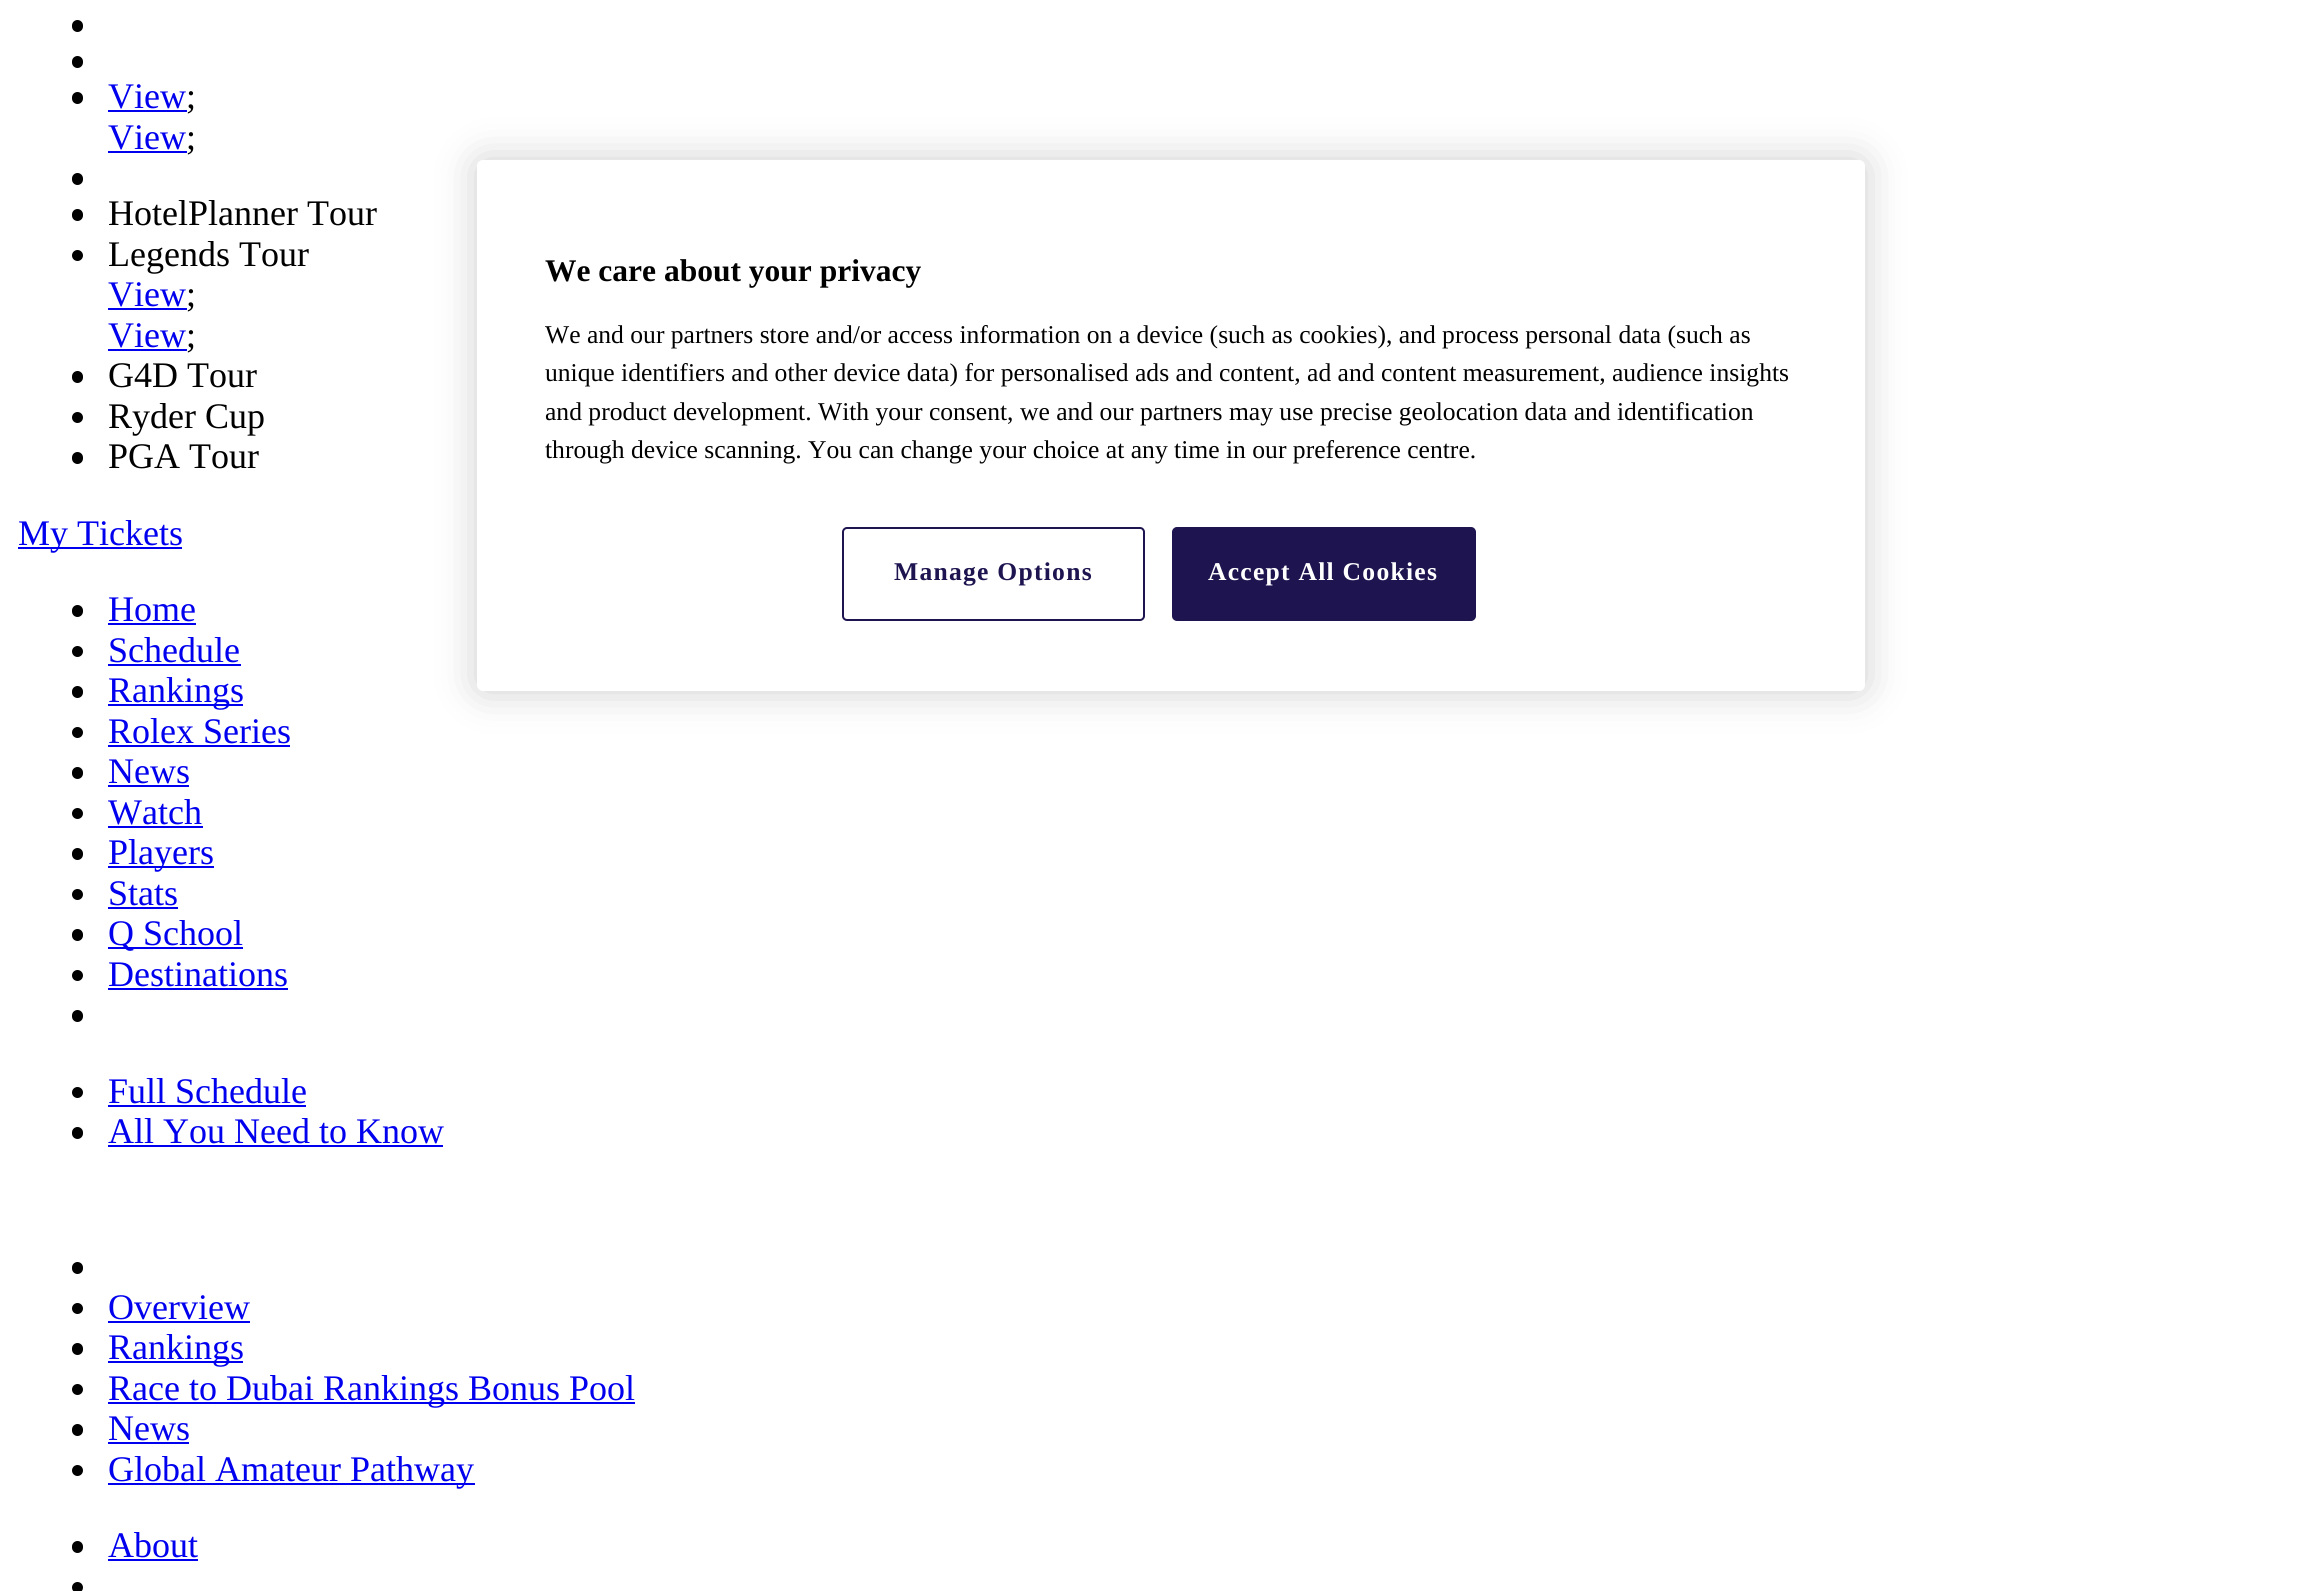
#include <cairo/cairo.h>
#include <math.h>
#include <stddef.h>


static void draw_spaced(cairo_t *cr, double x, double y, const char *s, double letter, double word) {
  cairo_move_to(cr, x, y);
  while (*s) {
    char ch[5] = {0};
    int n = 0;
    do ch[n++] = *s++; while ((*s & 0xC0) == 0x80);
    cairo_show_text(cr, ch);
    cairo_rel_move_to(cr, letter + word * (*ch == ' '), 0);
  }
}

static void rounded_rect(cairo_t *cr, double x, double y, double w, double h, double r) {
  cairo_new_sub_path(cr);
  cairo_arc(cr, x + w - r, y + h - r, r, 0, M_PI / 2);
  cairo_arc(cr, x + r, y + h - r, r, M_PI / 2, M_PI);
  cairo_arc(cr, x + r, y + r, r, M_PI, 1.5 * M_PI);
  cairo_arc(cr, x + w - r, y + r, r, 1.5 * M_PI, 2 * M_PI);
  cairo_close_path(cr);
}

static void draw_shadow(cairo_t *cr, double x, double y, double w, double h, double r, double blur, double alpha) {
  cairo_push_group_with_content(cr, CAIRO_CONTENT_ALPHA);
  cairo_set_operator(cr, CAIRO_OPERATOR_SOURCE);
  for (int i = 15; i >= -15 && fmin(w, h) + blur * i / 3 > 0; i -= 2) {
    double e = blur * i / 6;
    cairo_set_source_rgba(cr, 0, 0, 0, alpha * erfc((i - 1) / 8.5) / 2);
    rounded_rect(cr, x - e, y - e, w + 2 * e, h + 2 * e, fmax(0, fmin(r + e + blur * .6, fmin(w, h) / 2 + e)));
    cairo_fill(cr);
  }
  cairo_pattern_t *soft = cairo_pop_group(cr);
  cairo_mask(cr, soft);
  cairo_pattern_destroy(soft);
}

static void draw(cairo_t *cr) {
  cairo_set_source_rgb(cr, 1, 1, 1);
  cairo_paint(cr);
  cairo_set_source_rgb(cr, 0, 0, 0);
  rounded_rect(cr, 72, 20, 11, 12, 5.5);
  cairo_fill(cr);
  rounded_rect(cr, 72, 56, 11, 12, 5.5);
  cairo_fill(cr);
  rounded_rect(cr, 72, 92, 11, 12, 5.5);
  cairo_fill(cr);
  cairo_set_source_rgb(cr, 0, 0, 238 / 255.0);
  cairo_rectangle(cr, 108, 110, 79, 2);
  cairo_fill(cr);
  cairo_rectangle(cr, 108, 151, 79, 2);
  cairo_fill(cr);
  cairo_set_source_rgb(cr, 0, 0, 0);
  rounded_rect(cr, 72, 173, 11, 12, 5.5);
  cairo_fill(cr);
  rounded_rect(cr, 72, 209, 11, 12, 5.5);
  cairo_fill(cr);
  cairo_arc(cr, 77.5, 255.5, 5.5, 0, 2 * M_PI);
  cairo_fill(cr);
  cairo_set_source_rgb(cr, 0, 0, 238 / 255.0);
  cairo_rectangle(cr, 108, 308, 79, 2);
  cairo_fill(cr);
  cairo_rectangle(cr, 108, 349, 79, 2);
  cairo_fill(cr);
  cairo_set_source_rgb(cr, 0, 0, 0);
  rounded_rect(cr, 72, 371, 11, 12, 5.5);
  cairo_fill(cr);
  cairo_arc(cr, 77.5, 417.5, 5.5, 0, 2 * M_PI);
  cairo_fill(cr);
  rounded_rect(cr, 72, 452, 11, 12, 5.5);
  cairo_fill(cr);
  cairo_set_source_rgb(cr, 0, 0, 238 / 255.0);
  cairo_rectangle(cr, 18, 547, 164, 2);
  cairo_fill(cr);
  cairo_set_source_rgb(cr, 0, 0, 0);
  rounded_rect(cr, 72, 605, 11, 12, 5.5);
  cairo_fill(cr);
  cairo_set_source_rgb(cr, 0, 0, 238 / 255.0);
  cairo_rectangle(cr, 108, 623, 88, 2);
  cairo_fill(cr);
  cairo_set_source_rgb(cr, 0, 0, 0);
  cairo_arc(cr, 77.5, 651.5, 5.5, 0, 2 * M_PI);
  cairo_fill(cr);
  cairo_set_source_rgb(cr, 0, 0, 238 / 255.0);
  cairo_rectangle(cr, 108, 664, 133, 2);
  cairo_fill(cr);
  cairo_set_source_rgb(cr, 0, 0, 0);
  rounded_rect(cr, 72, 686, 11, 12, 5.5);
  cairo_fill(cr);
  cairo_set_source_rgb(cr, 0, 0, 238 / 255.0);
  cairo_rectangle(cr, 108, 704, 135, 2);
  cairo_fill(cr);
  cairo_set_source_rgb(cr, 0, 0, 0);
  cairo_arc(cr, 77.5, 732.5, 5.5, 0, 2 * M_PI);
  cairo_fill(cr);
  cairo_set_source_rgb(cr, 0, 0, 238 / 255.0);
  cairo_rectangle(cr, 108, 745, 182, 2);
  cairo_fill(cr);
  cairo_set_source_rgb(cr, 0, 0, 0);
  rounded_rect(cr, 72, 767, 11, 12, 5.5);
  cairo_fill(cr);
  cairo_set_source_rgb(cr, 0, 0, 238 / 255.0);
  cairo_rectangle(cr, 108, 785, 81, 2);
  cairo_fill(cr);
  cairo_set_source_rgb(cr, 0, 0, 0);
  cairo_arc(cr, 77.5, 813.5, 5.5, 0, 2 * M_PI);
  cairo_fill(cr);
  cairo_set_source_rgb(cr, 0, 0, 238 / 255.0);
  cairo_rectangle(cr, 108, 826, 95, 2);
  cairo_fill(cr);
  cairo_set_source_rgb(cr, 0, 0, 0);
  rounded_rect(cr, 72, 848, 11, 12, 5.5);
  cairo_fill(cr);
  cairo_set_source_rgb(cr, 0, 0, 238 / 255.0);
  cairo_rectangle(cr, 108, 866, 106, 2);
  cairo_fill(cr);
  cairo_set_source_rgb(cr, 0, 0, 0);
  cairo_arc(cr, 77.5, 894.5, 5.5, 0, 2 * M_PI);
  cairo_fill(cr);
  cairo_set_source_rgb(cr, 0, 0, 238 / 255.0);
  cairo_rectangle(cr, 108, 907, 70, 2);
  cairo_fill(cr);
  cairo_set_source_rgb(cr, 0, 0, 0);
  rounded_rect(cr, 72, 929, 11, 12, 5.5);
  cairo_fill(cr);
  cairo_set_source_rgb(cr, 0, 0, 238 / 255.0);
  cairo_rectangle(cr, 108, 947, 135, 2);
  cairo_fill(cr);
  cairo_set_source_rgb(cr, 0, 0, 0);
  cairo_arc(cr, 77.5, 975.5, 5.5, 0, 2 * M_PI);
  cairo_fill(cr);
  cairo_set_source_rgb(cr, 0, 0, 238 / 255.0);
  cairo_rectangle(cr, 108, 988, 180, 2);
  cairo_fill(cr);
  cairo_set_source_rgb(cr, 0, 0, 0);
  rounded_rect(cr, 72, 1010, 11, 12, 5.5);
  cairo_fill(cr);
  cairo_arc(cr, 77.5, 1092.5, 5.5, 0, 2 * M_PI);
  cairo_fill(cr);
  cairo_set_source_rgb(cr, 0, 0, 238 / 255.0);
  cairo_rectangle(cr, 108, 1105, 198, 2);
  cairo_fill(cr);
  cairo_set_source_rgb(cr, 0, 0, 0);
  rounded_rect(cr, 72, 1127, 11, 12, 5.5);
  cairo_fill(cr);
  cairo_set_source_rgb(cr, 0, 0, 238 / 255.0);
  cairo_rectangle(cr, 108, 1145, 335, 2);
  cairo_fill(cr);
  cairo_set_source_rgb(cr, 0, 0, 0);
  rounded_rect(cr, 72, 1262, 11, 12, 5.5);
  cairo_fill(cr);
  cairo_arc(cr, 77.5, 1308.5, 5.5, 0, 2 * M_PI);
  cairo_fill(cr);
  cairo_set_source_rgb(cr, 0, 0, 238 / 255.0);
  cairo_rectangle(cr, 108, 1321, 142, 2);
  cairo_fill(cr);
  cairo_set_source_rgb(cr, 0, 0, 0);
  rounded_rect(cr, 72, 1343, 11, 12, 5.5);
  cairo_fill(cr);
  cairo_set_source_rgb(cr, 0, 0, 238 / 255.0);
  cairo_rectangle(cr, 108, 1361, 135, 2);
  cairo_fill(cr);
  cairo_set_source_rgb(cr, 0, 0, 0);
  cairo_arc(cr, 77.5, 1389.5, 5.5, 0, 2 * M_PI);
  cairo_fill(cr);
  cairo_set_source_rgb(cr, 0, 0, 238 / 255.0);
  cairo_rectangle(cr, 108, 1402, 527, 2);
  cairo_fill(cr);
  cairo_set_source_rgb(cr, 0, 0, 0);
  rounded_rect(cr, 72, 1424, 11, 12, 5.5);
  cairo_fill(cr);
  cairo_set_source_rgb(cr, 0, 0, 238 / 255.0);
  cairo_rectangle(cr, 108, 1442, 81, 2);
  cairo_fill(cr);
  cairo_set_source_rgb(cr, 0, 0, 0);
  cairo_arc(cr, 77.5, 1470.5, 5.5, 0, 2 * M_PI);
  cairo_fill(cr);
  cairo_set_source_rgb(cr, 0, 0, 238 / 255.0);
  cairo_rectangle(cr, 108, 1483, 367, 2);
  cairo_fill(cr);
  cairo_set_source_rgb(cr, 0, 0, 0);
  rounded_rect(cr, 72, 1541, 11, 12, 5.5);
  cairo_fill(cr);
  cairo_set_source_rgb(cr, 0, 0, 238 / 255.0);
  cairo_rectangle(cr, 108, 1559, 90, 2);
  cairo_fill(cr);
  cairo_set_source_rgb(cr, 0, 0, 0);
  cairo_arc(cr, 77.5, 1587.5, 5.5, 0, 2 * M_PI);
  cairo_fill(cr);
  cairo_set_source_rgb(cr, 0, 0, 0);
  draw_shadow(cr, 477, 160, 1388, 531, 6, 20, 0.2);
  cairo_set_source_rgb(cr, 1, 1, 1);
  rounded_rect(cr, 477, 160, 1388, 531, 6);
  cairo_fill(cr);
  rounded_rect(cr, 843, 528, 301, 92, 4);
  cairo_set_source_rgb(cr, 30 / 255.0, 20 / 255.0, 80 / 255.0);
  cairo_stroke(cr);
  rounded_rect(cr, 1173, 528, 302, 92, 4);
  cairo_fill_preserve(cr);
  cairo_stroke(cr);
  cairo_select_font_face(cr, "Liberation Serif", CAIRO_FONT_SLANT_NORMAL, CAIRO_FONT_WEIGHT_NORMAL);
  cairo_set_font_size(cr, 36);
  cairo_set_source_rgb(cr, 0, 0, 238 / 255.0);
  cairo_move_to(cr, 108, 108);
  cairo_show_text(cr, "View");
  cairo_set_source_rgb(cr, 0, 0, 0);
  cairo_move_to(cr, 186, 108);
  cairo_show_text(cr, ";");
  cairo_set_source_rgb(cr, 0, 0, 238 / 255.0);
  cairo_move_to(cr, 108, 149);
  cairo_show_text(cr, "View");
  cairo_set_source_rgb(cr, 0, 0, 0);
  cairo_move_to(cr, 186, 149);
  cairo_show_text(cr, ";");
  cairo_move_to(cr, 108, 225);
  cairo_show_text(cr, "HotelPlanner Tour");
  cairo_move_to(cr, 108, 266);
  cairo_show_text(cr, "Legends Tour");
  cairo_set_source_rgb(cr, 0, 0, 238 / 255.0);
  cairo_move_to(cr, 108, 306);
  cairo_show_text(cr, "View");
  cairo_set_source_rgb(cr, 0, 0, 0);
  cairo_move_to(cr, 186, 306);
  cairo_show_text(cr, ";");
  cairo_set_source_rgb(cr, 0, 0, 238 / 255.0);
  cairo_move_to(cr, 108, 347);
  cairo_show_text(cr, "View");
  cairo_set_source_rgb(cr, 0, 0, 0);
  cairo_move_to(cr, 186, 347);
  cairo_show_text(cr, ";");
  cairo_move_to(cr, 108, 387);
  cairo_show_text(cr, "G4D Tour");
  cairo_move_to(cr, 108, 428);
  cairo_show_text(cr, "Ryder Cup");
  cairo_move_to(cr, 108, 468);
  cairo_show_text(cr, "PGA Tour");
  cairo_set_source_rgb(cr, 0, 0, 238 / 255.0);
  cairo_move_to(cr, 18, 545);
  cairo_show_text(cr, "My Tickets");
  cairo_move_to(cr, 108, 621);
  cairo_show_text(cr, "Home");
  cairo_move_to(cr, 108, 662);
  cairo_show_text(cr, "Schedule");
  cairo_move_to(cr, 108, 702);
  cairo_show_text(cr, "Rankings");
  cairo_move_to(cr, 108, 743);
  cairo_show_text(cr, "Rolex Series");
  cairo_move_to(cr, 108, 783);
  cairo_show_text(cr, "News");
  cairo_move_to(cr, 108, 824);
  cairo_show_text(cr, "Watch");
  cairo_move_to(cr, 108, 864);
  cairo_show_text(cr, "Players");
  cairo_move_to(cr, 108, 905);
  cairo_show_text(cr, "Stats");
  cairo_move_to(cr, 108, 945);
  cairo_show_text(cr, "Q School");
  cairo_move_to(cr, 108, 986);
  cairo_show_text(cr, "Destinations");
  cairo_move_to(cr, 108, 1103);
  cairo_show_text(cr, "Full Schedule");
  cairo_move_to(cr, 108, 1143);
  cairo_show_text(cr, "All You Need to Know");
  cairo_move_to(cr, 108, 1319);
  cairo_show_text(cr, "Overview");
  cairo_move_to(cr, 108, 1359);
  cairo_show_text(cr, "Rankings");
  cairo_move_to(cr, 108, 1400);
  cairo_show_text(cr, "Race to Dubai Rankings Bonus Pool");
  cairo_move_to(cr, 108, 1440);
  cairo_show_text(cr, "News");
  cairo_move_to(cr, 108, 1481);
  cairo_show_text(cr, "Global Amateur Pathway");
  cairo_move_to(cr, 108, 1557);
  cairo_show_text(cr, "About");
  cairo_select_font_face(cr, "Liberation Serif", CAIRO_FONT_SLANT_NORMAL, CAIRO_FONT_WEIGHT_BOLD);
  cairo_set_font_size(cr, 31.5);
  cairo_set_source_rgb(cr, 0, 0, 0);
  cairo_move_to(cr, 545, 281);
  cairo_show_text(cr, "We care about your privacy");
  cairo_select_font_face(cr, "Liberation Serif", CAIRO_FONT_SLANT_NORMAL, CAIRO_FONT_WEIGHT_NORMAL);
  cairo_set_font_size(cr, 25.6);
  cairo_move_to(cr, 545, 343);
  cairo_show_text(cr, "We and our partners store and/or access information on a device (such as cookies), and process personal data (such as");
  cairo_move_to(cr, 545, 381);
  cairo_show_text(cr, "unique identifiers and other device data) for personalised ads and content, ad and content measurement, audience insights");
  cairo_move_to(cr, 545, 420);
  cairo_show_text(cr, "and product development. With your consent, we and our partners may use precise geolocation data and identification");
  cairo_move_to(cr, 545, 458);
  cairo_show_text(cr, "through device scanning. You can change your choice at any time in our preference centre.");
  cairo_select_font_face(cr, "Liberation Serif", CAIRO_FONT_SLANT_NORMAL, CAIRO_FONT_WEIGHT_BOLD);
  cairo_set_source_rgb(cr, 30 / 255.0, 20 / 255.0, 80 / 255.0);
  draw_spaced(cr, 894, 580, "Manage Options", 1.25, 0);
  cairo_set_source_rgb(cr, 1, 1, 1);
  draw_spaced(cr, 1208, 580, "Accept All Cookies", 1.25, 0);
}

int main(void) {
  cairo_surface_t *surface = cairo_image_surface_create(CAIRO_FORMAT_RGB24, 2310, 1591);
  cairo_t *cr = cairo_create(surface);
  cairo_font_options_t *options = cairo_font_options_create();
  cairo_font_options_set_hint_metrics(options, CAIRO_HINT_METRICS_OFF);
  cairo_font_options_set_hint_style(options, CAIRO_HINT_STYLE_NONE);
  cairo_set_font_options(cr, options);
  cairo_set_miter_limit(cr, 4);
  draw(cr);
  cairo_surface_write_to_png(surface, "out.png");
  cairo_font_options_destroy(options);
  cairo_destroy(cr);
  cairo_surface_destroy(surface);
  return 0;
}
